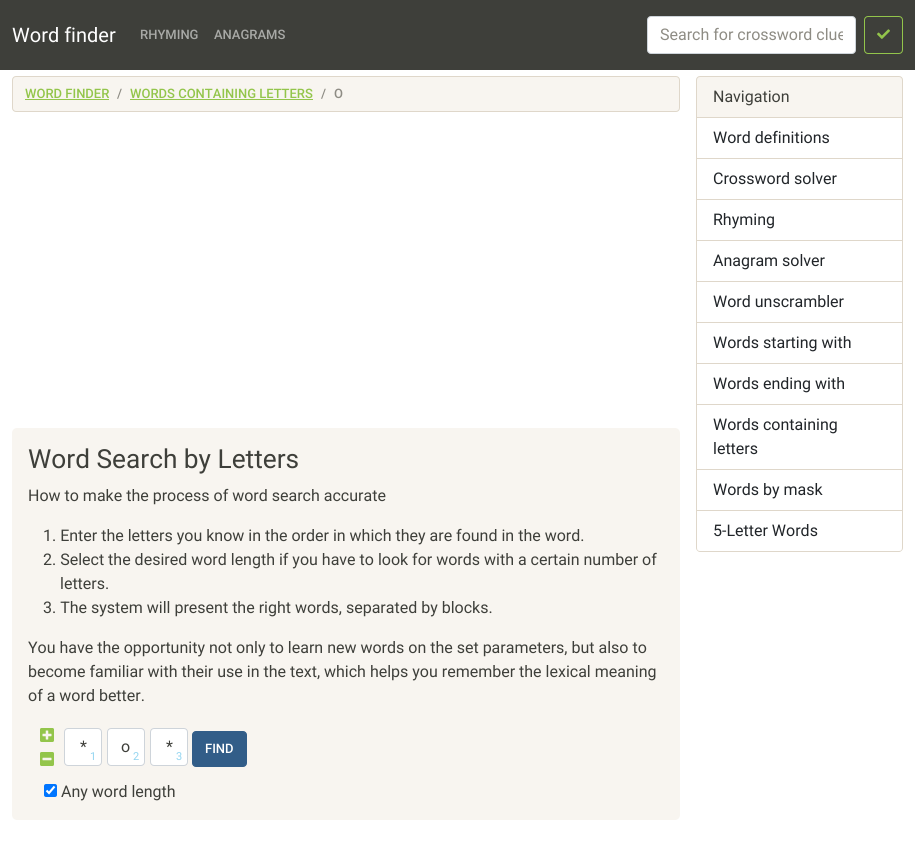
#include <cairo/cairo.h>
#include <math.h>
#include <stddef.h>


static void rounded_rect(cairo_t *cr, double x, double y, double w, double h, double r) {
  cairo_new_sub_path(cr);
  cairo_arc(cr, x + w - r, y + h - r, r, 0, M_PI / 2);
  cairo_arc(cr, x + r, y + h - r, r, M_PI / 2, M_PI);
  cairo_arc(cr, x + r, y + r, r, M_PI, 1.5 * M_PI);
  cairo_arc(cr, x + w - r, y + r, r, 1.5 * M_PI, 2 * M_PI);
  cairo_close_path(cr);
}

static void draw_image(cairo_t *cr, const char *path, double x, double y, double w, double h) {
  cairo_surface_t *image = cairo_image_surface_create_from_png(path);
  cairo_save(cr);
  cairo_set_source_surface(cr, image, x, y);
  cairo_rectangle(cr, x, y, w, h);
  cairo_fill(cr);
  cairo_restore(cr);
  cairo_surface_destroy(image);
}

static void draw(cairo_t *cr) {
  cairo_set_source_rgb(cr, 1, 1, 1);
  cairo_paint(cr);
  cairo_set_source_rgb(cr, 62 / 255.0, 63 / 255.0, 58 / 255.0);
  cairo_rectangle(cr, 0, 0, 915, 70);
  cairo_fill(cr);
  cairo_set_source_rgb(cr, 1, 1, 1);
  rounded_rect(cr, 647.5, 16.5, 208, 37, 3.5);
  cairo_fill_preserve(cr);
  cairo_set_source_rgb(cr, 206 / 255.0, 212 / 255.0, 218 / 255.0);
  cairo_set_line_width(cr, 1);
  cairo_stroke(cr);
  rounded_rect(cr, 864.5, 16.5, 38, 37, 3.5);
  cairo_set_source_rgb(cr, 147 / 255.0, 197 / 255.0, 75 / 255.0);
  cairo_stroke(cr);
  draw_image(cr, "images/1.png", 877, 29, 13, 10);
  cairo_set_source_rgb(cr, 248 / 255.0, 245 / 255.0, 240 / 255.0);
  rounded_rect(cr, 12.5, 76.5, 667, 35, 3.5);
  cairo_fill_preserve(cr);
  cairo_set_source_rgb(cr, 223 / 255.0, 215 / 255.0, 202 / 255.0);
  cairo_stroke(cr);
  cairo_set_source_rgb(cr, 147 / 255.0, 197 / 255.0, 75 / 255.0);
  cairo_rectangle(cr, 25, 99, 84, 1);
  cairo_fill(cr);
  cairo_rectangle(cr, 130, 99, 183, 1);
  cairo_fill(cr);
  cairo_set_source_rgb(cr, 248 / 255.0, 245 / 255.0, 240 / 255.0);
  rounded_rect(cr, 12, 428, 668, 392, 5);
  cairo_fill(cr);
  draw_image(cr, "images/2.png", 40, 728, 14, 14);
  draw_image(cr, "images/3.png", 40, 752, 14, 14);
  cairo_set_source_rgb(cr, 1, 1, 1);
  rounded_rect(cr, 64.5, 728.5, 37, 37, 3.5);
  cairo_fill_preserve(cr);
  cairo_set_source_rgb(cr, 206 / 255.0, 212 / 255.0, 218 / 255.0);
  cairo_stroke(cr);
  cairo_set_source_rgb(cr, 1, 1, 1);
  rounded_rect(cr, 107.5, 728.5, 37, 37, 3.5);
  cairo_fill_preserve(cr);
  cairo_set_source_rgb(cr, 206 / 255.0, 212 / 255.0, 218 / 255.0);
  cairo_stroke(cr);
  cairo_set_source_rgb(cr, 1, 1, 1);
  rounded_rect(cr, 150.5, 728.5, 37, 37, 3.5);
  cairo_fill_preserve(cr);
  cairo_set_source_rgb(cr, 206 / 255.0, 212 / 255.0, 218 / 255.0);
  cairo_stroke(cr);
  cairo_set_source_rgb(cr, 50 / 255.0, 93 / 255.0, 136 / 255.0);
  rounded_rect(cr, 192.5, 731.5, 54, 35, 3.5);
  cairo_fill_preserve(cr);
  cairo_stroke(cr);
  cairo_set_source_rgb(cr, 0, 117 / 255.0, 1);
  rounded_rect(cr, 44, 784, 13, 13, 2);
  cairo_fill(cr);
  cairo_new_path(cr);
  cairo_move_to(cr, 46.5, 790.5);
  cairo_line_to(cr, 49, 793);
  cairo_line_to(cr, 54.5, 786.5);
  cairo_set_source_rgb(cr, 1, 1, 1);
  cairo_set_line_width(cr, 2.1);
  cairo_stroke(cr);
  cairo_set_source_rgb(cr, 248 / 255.0, 245 / 255.0, 240 / 255.0);
  cairo_new_path(cr);
  cairo_move_to(cr, 700, 76.5);
  cairo_line_to(cr, 899, 76.5);
  cairo_curve_to(cr, 901, 76.5, 902.5, 78, 902.5, 80);
  cairo_line_to(cr, 902.5, 117.5);
  cairo_line_to(cr, 696.5, 117.5);
  cairo_line_to(cr, 696.5, 80);
  cairo_curve_to(cr, 696.5, 78, 698, 76.5, 700, 76.5);
  cairo_close_path(cr);
  cairo_fill_preserve(cr);
  cairo_set_source_rgb(cr, 223 / 255.0, 215 / 255.0, 202 / 255.0);
  cairo_set_line_width(cr, 1);
  cairo_stroke(cr);
  cairo_rectangle(cr, 902, 118, 1, 393);
  cairo_fill(cr);
  cairo_rectangle(cr, 696, 158, 207, 1);
  cairo_fill(cr);
  cairo_rectangle(cr, 696, 118, 1, 41);
  cairo_fill(cr);
  cairo_rectangle(cr, 696, 199, 207, 1);
  cairo_fill(cr);
  cairo_rectangle(cr, 696, 159, 1, 41);
  cairo_fill(cr);
  cairo_rectangle(cr, 696, 240, 207, 1);
  cairo_fill(cr);
  cairo_rectangle(cr, 696, 200, 1, 41);
  cairo_fill(cr);
  cairo_rectangle(cr, 696, 281, 207, 1);
  cairo_fill(cr);
  cairo_rectangle(cr, 696, 241, 1, 41);
  cairo_fill(cr);
  cairo_rectangle(cr, 696, 322, 207, 1);
  cairo_fill(cr);
  cairo_rectangle(cr, 696, 282, 1, 41);
  cairo_fill(cr);
  cairo_rectangle(cr, 696, 363, 207, 1);
  cairo_fill(cr);
  cairo_rectangle(cr, 696, 323, 1, 41);
  cairo_fill(cr);
  cairo_rectangle(cr, 696, 404, 207, 1);
  cairo_fill(cr);
  cairo_rectangle(cr, 696, 364, 1, 41);
  cairo_fill(cr);
  cairo_rectangle(cr, 696, 469, 207, 1);
  cairo_fill(cr);
  cairo_rectangle(cr, 696, 405, 1, 65);
  cairo_fill(cr);
  cairo_rectangle(cr, 696, 510, 207, 1);
  cairo_fill(cr);
  cairo_rectangle(cr, 696, 470, 1, 41);
  cairo_fill(cr);
  cairo_set_fill_rule(cr, CAIRO_FILL_RULE_EVEN_ODD);
  cairo_new_path(cr);
  cairo_move_to(cr, 696, 511);
  cairo_line_to(cr, 903, 511);
  cairo_line_to(cr, 903, 548);
  cairo_curve_to(cr, 903, 550, 901, 552, 899, 552);
  cairo_line_to(cr, 700, 552);
  cairo_curve_to(cr, 698, 552, 696, 550, 696, 548);
  cairo_close_path(cr);
  cairo_move_to(cr, 697, 511);
  cairo_line_to(cr, 902, 511);
  cairo_line_to(cr, 902, 548);
  cairo_curve_to(cr, 902, 550, 901, 551, 899, 551);
  cairo_line_to(cr, 700, 551);
  cairo_curve_to(cr, 698, 551, 697, 550, 697, 548);
  cairo_close_path(cr);
  cairo_fill(cr);
  cairo_select_font_face(cr, "Roboto", CAIRO_FONT_SLANT_NORMAL, CAIRO_FONT_WEIGHT_NORMAL);
  cairo_set_font_size(cr, 20);
  cairo_set_source_rgb(cr, 1, 1, 1);
  cairo_move_to(cr, 12, 42);
  cairo_show_text(cr, "Word finder");
  cairo_select_font_face(cr, "Roboto Medium", CAIRO_FONT_SLANT_NORMAL, CAIRO_FONT_WEIGHT_NORMAL);
  cairo_set_font_size(cr, 13);
  cairo_set_source_rgb(cr, 168 / 255.0, 169 / 255.0, 166 / 255.0);
  cairo_move_to(cr, 140, 39);
  cairo_show_text(cr, "RHYMING");
  cairo_move_to(cr, 214, 39);
  cairo_show_text(cr, "ANAGRAMS");
  cairo_save(cr);
  cairo_set_fill_rule(cr, CAIRO_FILL_RULE_WINDING);
  cairo_rectangle(cr, 660, 25, 183, 19);
  cairo_clip(cr);
  cairo_select_font_face(cr, "Roboto", CAIRO_FONT_SLANT_NORMAL, CAIRO_FONT_WEIGHT_NORMAL);
  cairo_set_font_size(cr, 16);
  cairo_set_source_rgb(cr, 142 / 255.0, 140 / 255.0, 132 / 255.0);
  cairo_move_to(cr, 660, 40);
  cairo_show_text(cr, "Search for crossword clue");
  cairo_restore(cr);
  cairo_set_source_rgb(cr, 147 / 255.0, 197 / 255.0, 75 / 255.0);
  cairo_move_to(cr, 25, 98);
  cairo_show_text(cr, "WORD FINDER");
  cairo_set_source_rgb(cr, 142 / 255.0, 140 / 255.0, 132 / 255.0);
  cairo_move_to(cr, 117, 98);
  cairo_show_text(cr, "/");
  cairo_set_source_rgb(cr, 147 / 255.0, 197 / 255.0, 75 / 255.0);
  cairo_move_to(cr, 130, 98);
  cairo_show_text(cr, "WORDS CONTAINING LETTERS");
  cairo_set_source_rgb(cr, 142 / 255.0, 140 / 255.0, 132 / 255.0);
  cairo_move_to(cr, 321, 98);
  cairo_show_text(cr, "/");
  cairo_move_to(cr, 334, 98);
  cairo_show_text(cr, "O");
  cairo_select_font_face(cr, "Roboto", CAIRO_FONT_SLANT_NORMAL, CAIRO_FONT_WEIGHT_NORMAL);
  cairo_set_font_size(cr, 26.25);
  cairo_set_source_rgb(cr, 62 / 255.0, 63 / 255.0, 58 / 255.0);
  cairo_move_to(cr, 28, 468);
  cairo_show_text(cr, "Word Search by Letters");
  cairo_set_font_size(cr, 16);
  cairo_move_to(cr, 28, 501);
  cairo_show_text(cr, "How to make the process of word search accurate");
  cairo_move_to(cr, 43, 541);
  cairo_show_text(cr, "1. Enter the letters you know in the order in which they are found in the word.");
  cairo_move_to(cr, 43, 565);
  cairo_show_text(cr, "2. Select the desired word length if you have to look for words with a certain number of");
  cairo_move_to(cr, 60, 589);
  cairo_show_text(cr, "letters.");
  cairo_move_to(cr, 43, 613);
  cairo_show_text(cr, "3. The system will present the right words, separated by blocks.");
  cairo_move_to(cr, 28, 653);
  cairo_show_text(cr, "You have the opportunity not only to learn new words on the set parameters, but also to");
  cairo_move_to(cr, 28, 677);
  cairo_show_text(cr, "become familiar with their use in the text, which helps you remember the lexical meaning");
  cairo_move_to(cr, 28, 701);
  cairo_show_text(cr, "of a word better.");
  cairo_move_to(cr, 80, 752);
  cairo_show_text(cr, "*");
  cairo_set_font_size(cr, 11);
  cairo_set_source_rgb(cr, 148 / 255.0, 213 / 255.0, 240 / 255.0);
  cairo_move_to(cr, 90, 760);
  cairo_show_text(cr, "1");
  cairo_set_font_size(cr, 16);
  cairo_set_source_rgb(cr, 62 / 255.0, 63 / 255.0, 58 / 255.0);
  cairo_move_to(cr, 121, 752);
  cairo_show_text(cr, "o");
  cairo_set_font_size(cr, 11);
  cairo_set_source_rgb(cr, 148 / 255.0, 213 / 255.0, 240 / 255.0);
  cairo_move_to(cr, 133, 760);
  cairo_show_text(cr, "2");
  cairo_set_font_size(cr, 16);
  cairo_set_source_rgb(cr, 62 / 255.0, 63 / 255.0, 58 / 255.0);
  cairo_move_to(cr, 166, 752);
  cairo_show_text(cr, "*");
  cairo_set_font_size(cr, 11);
  cairo_set_source_rgb(cr, 148 / 255.0, 213 / 255.0, 240 / 255.0);
  cairo_move_to(cr, 176, 760);
  cairo_show_text(cr, "3");
  cairo_select_font_face(cr, "Roboto Medium", CAIRO_FONT_SLANT_NORMAL, CAIRO_FONT_WEIGHT_NORMAL);
  cairo_set_font_size(cr, 13);
  cairo_set_source_rgb(cr, 1, 1, 1);
  cairo_move_to(cr, 205, 753);
  cairo_show_text(cr, "FIND");
  cairo_select_font_face(cr, "Roboto", CAIRO_FONT_SLANT_NORMAL, CAIRO_FONT_WEIGHT_NORMAL);
  cairo_set_font_size(cr, 16);
  cairo_set_source_rgb(cr, 62 / 255.0, 63 / 255.0, 58 / 255.0);
  cairo_move_to(cr, 61, 797);
  cairo_show_text(cr, "Any word length");
  cairo_move_to(cr, 713, 102);
  cairo_show_text(cr, "Navigation");
  cairo_set_source_rgb(cr, 33 / 255.0, 37 / 255.0, 41 / 255.0);
  cairo_move_to(cr, 713, 143);
  cairo_show_text(cr, "Word definitions");
  cairo_move_to(cr, 713, 184);
  cairo_show_text(cr, "Crossword solver");
  cairo_move_to(cr, 713, 225);
  cairo_show_text(cr, "Rhyming");
  cairo_move_to(cr, 713, 266);
  cairo_show_text(cr, "Anagram solver");
  cairo_move_to(cr, 713, 307);
  cairo_show_text(cr, "Word unscrambler");
  cairo_move_to(cr, 713, 348);
  cairo_show_text(cr, "Words starting with");
  cairo_move_to(cr, 713, 389);
  cairo_show_text(cr, "Words ending with");
  cairo_move_to(cr, 713, 430);
  cairo_show_text(cr, "Words containing");
  cairo_move_to(cr, 713, 454);
  cairo_show_text(cr, "letters");
  cairo_move_to(cr, 713, 495);
  cairo_show_text(cr, "Words by mask");
  cairo_move_to(cr, 713, 536);
  cairo_show_text(cr, "5-Letter Words");
}

int main(void) {
  cairo_surface_t *surface = cairo_image_surface_create(CAIRO_FORMAT_RGB24, 915, 841);
  cairo_t *cr = cairo_create(surface);
  cairo_font_options_t *options = cairo_font_options_create();
  cairo_font_options_set_hint_metrics(options, CAIRO_HINT_METRICS_OFF);
  cairo_font_options_set_hint_style(options, CAIRO_HINT_STYLE_NONE);
  cairo_set_font_options(cr, options);
  cairo_set_miter_limit(cr, 4);
  draw(cr);
  cairo_surface_write_to_png(surface, "out.png");
  cairo_font_options_destroy(options);
  cairo_destroy(cr);
  cairo_surface_destroy(surface);
  return 0;
}
